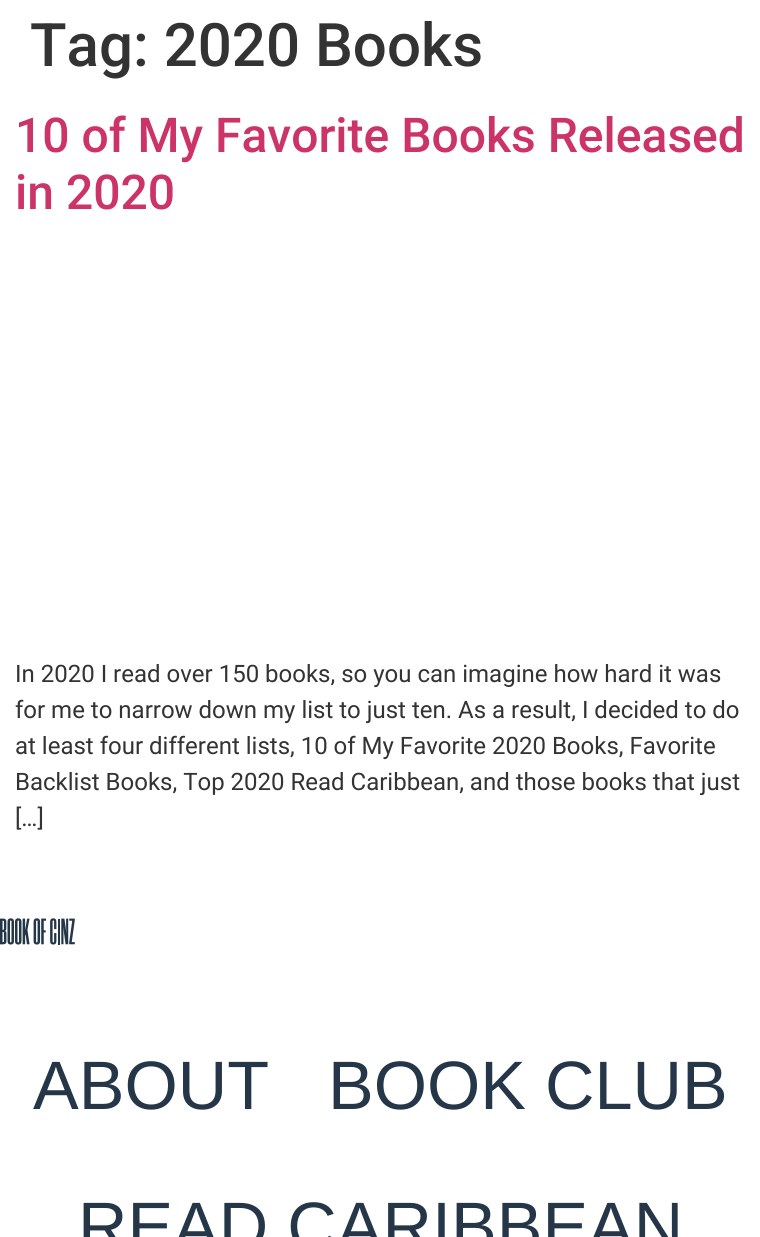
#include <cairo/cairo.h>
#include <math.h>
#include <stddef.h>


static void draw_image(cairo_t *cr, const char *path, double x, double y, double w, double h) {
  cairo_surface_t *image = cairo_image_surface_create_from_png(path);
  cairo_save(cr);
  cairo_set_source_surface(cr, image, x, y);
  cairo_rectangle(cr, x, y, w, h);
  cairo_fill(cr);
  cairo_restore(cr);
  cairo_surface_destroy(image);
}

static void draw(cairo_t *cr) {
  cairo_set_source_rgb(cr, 1, 1, 1);
  cairo_paint(cr);
  draw_image(cr, "images/1.png", 0, 918, 75, 27);
  cairo_select_font_face(cr, "Roboto Medium", CAIRO_FONT_SLANT_NORMAL, CAIRO_FONT_WEIGHT_NORMAL);
  cairo_set_font_size(cr, 60);
  cairo_set_source_rgb(cr, 51 / 255.0, 51 / 255.0, 51 / 255.0);
  cairo_move_to(cr, 30, 66);
  cairo_show_text(cr, "Tag: 2020 Books");
  cairo_set_font_size(cr, 48);
  cairo_set_source_rgb(cr, 204 / 255.0, 51 / 255.0, 102 / 255.0);
  cairo_move_to(cr, 15, 152);
  cairo_show_text(cr, "10 of My Favorite Books Released");
  cairo_move_to(cr, 15, 209);
  cairo_show_text(cr, "in 2020");
  cairo_select_font_face(cr, "Roboto", CAIRO_FONT_SLANT_NORMAL, CAIRO_FONT_WEIGHT_NORMAL);
  cairo_set_font_size(cr, 24);
  cairo_set_source_rgb(cr, 51 / 255.0, 51 / 255.0, 51 / 255.0);
  cairo_move_to(cr, 15, 682);
  cairo_show_text(cr, "In 2020 I read over 150 books, so you can imagine how hard it was");
  cairo_move_to(cr, 15, 718);
  cairo_show_text(cr, "for me to narrow down my list to just ten. As a result, I decided to do");
  cairo_move_to(cr, 15, 754);
  cairo_show_text(cr, "at least four different lists, 10 of My Favorite 2020 Books, Favorite");
  cairo_move_to(cr, 15, 790);
  cairo_show_text(cr, "Backlist Books, Top 2020 Read Caribbean, and those books that just");
  cairo_move_to(cr, 15, 826);
  cairo_show_text(cr, "[…]");
  cairo_select_font_face(cr, "Liberation Sans", CAIRO_FONT_SLANT_NORMAL, CAIRO_FONT_WEIGHT_NORMAL);
  cairo_set_font_size(cr, 68.5);
  cairo_set_source_rgb(cr, 36 / 255.0, 54 / 255.0, 71 / 255.0);
  cairo_move_to(cr, 33, 1109);
  cairo_show_text(cr, "ABOUT");
  cairo_move_to(cr, 328, 1109);
  cairo_show_text(cr, "BOOK CLUB");
  cairo_move_to(cr, 78, 1250);
  cairo_show_text(cr, "READ CARIBBEAN");
}

int main(void) {
  cairo_surface_t *surface = cairo_image_surface_create(CAIRO_FORMAT_RGB24, 760, 1237);
  cairo_t *cr = cairo_create(surface);
  cairo_font_options_t *options = cairo_font_options_create();
  cairo_font_options_set_hint_metrics(options, CAIRO_HINT_METRICS_OFF);
  cairo_font_options_set_hint_style(options, CAIRO_HINT_STYLE_NONE);
  cairo_set_font_options(cr, options);
  cairo_set_miter_limit(cr, 4);
  draw(cr);
  cairo_surface_write_to_png(surface, "out.png");
  cairo_font_options_destroy(options);
  cairo_destroy(cr);
  cairo_surface_destroy(surface);
  return 0;
}
